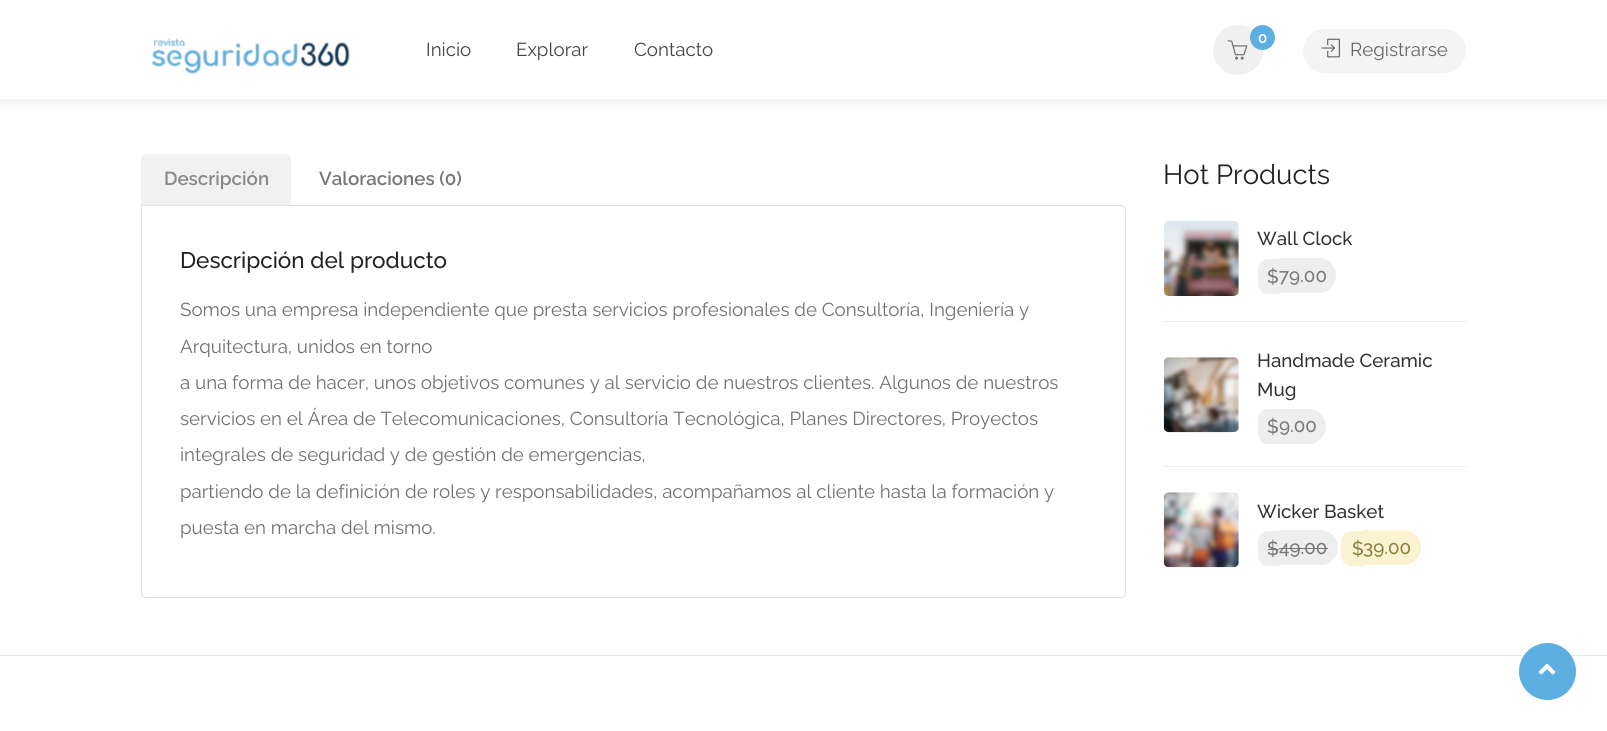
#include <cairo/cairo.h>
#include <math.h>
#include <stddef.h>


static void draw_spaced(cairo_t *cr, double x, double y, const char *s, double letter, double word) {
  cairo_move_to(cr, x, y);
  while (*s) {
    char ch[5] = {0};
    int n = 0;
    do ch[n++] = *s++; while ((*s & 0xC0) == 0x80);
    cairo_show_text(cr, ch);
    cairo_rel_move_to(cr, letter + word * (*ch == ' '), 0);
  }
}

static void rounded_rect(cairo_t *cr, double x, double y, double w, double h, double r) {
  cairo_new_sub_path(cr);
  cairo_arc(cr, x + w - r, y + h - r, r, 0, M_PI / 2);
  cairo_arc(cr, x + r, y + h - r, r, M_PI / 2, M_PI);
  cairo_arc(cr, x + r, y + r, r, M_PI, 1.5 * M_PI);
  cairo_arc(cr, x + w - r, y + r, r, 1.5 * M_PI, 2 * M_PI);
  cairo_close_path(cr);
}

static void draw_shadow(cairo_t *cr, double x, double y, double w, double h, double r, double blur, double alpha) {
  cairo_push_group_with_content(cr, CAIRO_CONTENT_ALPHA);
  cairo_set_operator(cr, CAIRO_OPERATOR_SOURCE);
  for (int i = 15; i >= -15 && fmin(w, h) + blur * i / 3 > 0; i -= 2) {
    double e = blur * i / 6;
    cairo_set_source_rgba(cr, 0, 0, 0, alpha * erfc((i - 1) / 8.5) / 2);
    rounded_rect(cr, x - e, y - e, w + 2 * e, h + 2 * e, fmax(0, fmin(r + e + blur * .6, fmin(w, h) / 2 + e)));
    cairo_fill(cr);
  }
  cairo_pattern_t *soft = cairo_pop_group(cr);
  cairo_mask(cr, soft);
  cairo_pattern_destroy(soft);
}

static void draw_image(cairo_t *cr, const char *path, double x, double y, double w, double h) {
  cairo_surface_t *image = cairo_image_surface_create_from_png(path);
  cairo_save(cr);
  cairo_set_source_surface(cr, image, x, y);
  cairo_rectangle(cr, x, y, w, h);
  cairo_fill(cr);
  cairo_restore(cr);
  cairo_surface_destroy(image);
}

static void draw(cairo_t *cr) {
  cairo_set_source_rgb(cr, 1, 1, 1);
  cairo_paint(cr);
  cairo_set_source_rgb(cr, 0, 0, 0);
  draw_shadow(cr, 0, 0, 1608, 99, 0, 7.5, 0.12);
  cairo_set_source_rgb(cr, 1, 1, 1);
  cairo_rectangle(cr, 0, 0, 1607, 99);
  cairo_fill(cr);
  draw_image(cr, "images/1.png", 151, 38, 199, 36);
  cairo_set_source_rgb(cr, 240 / 255.0, 240 / 255.0, 240 / 255.0);
  cairo_arc(cr, 1238, 50, 25, 0, 2 * M_PI);
  cairo_fill(cr);
  cairo_set_source_rgb(cr, 92 / 255.0, 175 / 255.0, 224 / 255.0);
  cairo_arc(cr, 1262.5, 37.5, 12.5, 0, 2 * M_PI);
  cairo_fill(cr);
  draw_image(cr, "images/2.png", 1227, 40, 21, 20);
  cairo_set_source_rgb(cr, 244 / 255.0, 244 / 255.0, 244 / 255.0);
  rounded_rect(cr, 1303, 29, 163, 44, 22);
  cairo_fill(cr);
  draw_image(cr, "images/3.png", 1321, 38, 19, 20);
  cairo_set_source_rgb(cr, 241 / 255.0, 241 / 255.0, 241 / 255.0);
  cairo_new_path(cr);
  cairo_move_to(cr, 146, 154);
  cairo_line_to(cr, 286, 154);
  cairo_curve_to(cr, 289, 154, 291, 156, 291, 159);
  cairo_line_to(cr, 291, 205);
  cairo_line_to(cr, 141, 205);
  cairo_line_to(cr, 141, 159);
  cairo_curve_to(cr, 141, 156, 143, 154, 146, 154);
  cairo_close_path(cr);
  cairo_fill(cr);
  cairo_new_path(cr);
  cairo_move_to(cr, 141.5, 205.5);
  cairo_line_to(cr, 1121, 205.5);
  cairo_curve_to(cr, 1123.5, 205.5, 1125.5, 207.5, 1125.5, 210);
  cairo_line_to(cr, 1125.5, 593);
  cairo_curve_to(cr, 1125.5, 595.5, 1123.5, 597.5, 1121, 597.5);
  cairo_line_to(cr, 146, 597.5);
  cairo_curve_to(cr, 143.5, 597.5, 141.5, 595.5, 141.5, 593);
  cairo_close_path(cr);
  cairo_set_source_rgb(cr, 224 / 255.0, 224 / 255.0, 224 / 255.0);
  cairo_set_line_width(cr, 1);
  cairo_stroke(cr);
  cairo_set_source_rgb(cr, 238 / 255.0, 238 / 255.0, 238 / 255.0);
  cairo_rectangle(cr, 1164, 321, 302, 1);
  cairo_fill(cr);
  draw_image(cr, "images/4.png", 1163, 221, 76, 75);
  cairo_new_path(cr);
  cairo_move_to(cr, 1268.5, 259);
  cairo_line_to(cr, 1279, 259);
  cairo_line_to(cr, 1279, 294);
  cairo_line_to(cr, 1268.5, 294);
  cairo_curve_to(cr, 1262.5, 294, 1258, 289.5, 1258, 283.5);
  cairo_line_to(cr, 1258, 269.5);
  cairo_curve_to(cr, 1258, 263.5, 1262.5, 259, 1268.5, 259);
  cairo_close_path(cr);
  cairo_fill(cr);
  cairo_new_path(cr);
  cairo_move_to(cr, 1279, 258);
  cairo_line_to(cr, 1318.5, 258);
  cairo_curve_to(cr, 1328, 258, 1336, 266, 1336, 275.5);
  cairo_curve_to(cr, 1336, 285, 1328, 293, 1318.5, 293);
  cairo_line_to(cr, 1279, 293);
  cairo_close_path(cr);
  cairo_fill(cr);
  cairo_rectangle(cr, 1164, 466, 302, 1);
  cairo_fill(cr);
  draw_image(cr, "images/5.png", 1163, 357, 76, 76);
  cairo_new_path(cr);
  cairo_move_to(cr, 1268.5, 409);
  cairo_line_to(cr, 1279, 409);
  cairo_line_to(cr, 1279, 444);
  cairo_line_to(cr, 1268.5, 444);
  cairo_curve_to(cr, 1262.5, 444, 1258, 439.5, 1258, 433.5);
  cairo_line_to(cr, 1258, 419.5);
  cairo_curve_to(cr, 1258, 413.5, 1262.5, 409, 1268.5, 409);
  cairo_close_path(cr);
  cairo_fill(cr);
  cairo_new_path(cr);
  cairo_move_to(cr, 1279, 409);
  cairo_line_to(cr, 1308.5, 409);
  cairo_curve_to(cr, 1318, 409, 1326, 417, 1326, 426.5);
  cairo_curve_to(cr, 1326, 436, 1318, 444, 1308.5, 444);
  cairo_line_to(cr, 1279, 444);
  cairo_close_path(cr);
  cairo_fill(cr);
  draw_image(cr, "images/6.png", 1163, 492, 76, 76);
  cairo_new_path(cr);
  cairo_move_to(cr, 1268.5, 531);
  cairo_line_to(cr, 1279, 531);
  cairo_line_to(cr, 1279, 566);
  cairo_line_to(cr, 1268.5, 566);
  cairo_curve_to(cr, 1262.5, 566, 1258, 561.5, 1258, 555.5);
  cairo_line_to(cr, 1258, 541.5);
  cairo_curve_to(cr, 1258, 535.5, 1262.5, 531, 1268.5, 531);
  cairo_close_path(cr);
  cairo_fill(cr);
  cairo_new_path(cr);
  cairo_move_to(cr, 1279, 530);
  cairo_line_to(cr, 1320.5, 530);
  cairo_curve_to(cr, 1330, 530, 1338, 538, 1338, 547.5);
  cairo_curve_to(cr, 1338, 557, 1330, 565, 1320.5, 565);
  cairo_line_to(cr, 1279, 565);
  cairo_close_path(cr);
  cairo_fill(cr);
  cairo_set_source_rgb(cr, 119 / 255.0, 119 / 255.0, 119 / 255.0);
  cairo_rectangle(cr, 1279, 548, 49, 1);
  cairo_fill(cr);
  cairo_rectangle(cr, 1268, 549, 11, 1);
  cairo_fill(cr);
  cairo_set_source_rgb(cr, 251 / 255.0, 242 / 255.0, 209 / 255.0);
  cairo_new_path(cr);
  cairo_move_to(cr, 1352.5, 531);
  cairo_line_to(cr, 1364, 531);
  cairo_line_to(cr, 1364, 566);
  cairo_line_to(cr, 1352.5, 566);
  cairo_curve_to(cr, 1346, 566, 1341, 561, 1341, 554.5);
  cairo_line_to(cr, 1341, 542.5);
  cairo_curve_to(cr, 1341, 536, 1346, 531, 1352.5, 531);
  cairo_close_path(cr);
  cairo_fill(cr);
  cairo_new_path(cr);
  cairo_move_to(cr, 1364, 530);
  cairo_line_to(cr, 1403.5, 530);
  cairo_curve_to(cr, 1413, 530, 1421, 538, 1421, 547.5);
  cairo_curve_to(cr, 1421, 557, 1413, 565, 1403.5, 565);
  cairo_line_to(cr, 1364, 565);
  cairo_close_path(cr);
  cairo_fill(cr);
  cairo_set_source_rgb(cr, 232 / 255.0, 232 / 255.0, 232 / 255.0);
  cairo_rectangle(cr, 0, 655, 1607, 1);
  cairo_fill(cr);
  cairo_set_source_rgb(cr, 92 / 255.0, 175 / 255.0, 224 / 255.0);
  cairo_arc(cr, 1547.5, 671.5, 28.5, 0, 2 * M_PI);
  cairo_fill(cr);
  draw_image(cr, "images/7.png", 1538, 663, 18, 12);
  cairo_select_font_face(cr, "Raleway Thin", CAIRO_FONT_SLANT_NORMAL, CAIRO_FONT_WEIGHT_NORMAL);
  cairo_set_font_size(cr, 18.75);
  cairo_set_source_rgb(cr, 68 / 255.0, 68 / 255.0, 68 / 255.0);
  cairo_move_to(cr, 426, 56);
  cairo_show_text(cr, "Inicio");
  cairo_move_to(cr, 516, 56);
  cairo_show_text(cr, "Explorar");
  cairo_move_to(cr, 634, 56);
  cairo_show_text(cr, "Contacto");
  cairo_select_font_face(cr, "Raleway SemiBold", CAIRO_FONT_SLANT_NORMAL, CAIRO_FONT_WEIGHT_NORMAL);
  cairo_set_font_size(cr, 15);
  cairo_set_source_rgb(cr, 1, 1, 1);
  draw_spaced(cr, 1258, 43, "0", -1, 0);
  cairo_select_font_face(cr, "Raleway Thin", CAIRO_FONT_SLANT_NORMAL, CAIRO_FONT_WEIGHT_NORMAL);
  cairo_set_font_size(cr, 18.75);
  cairo_set_source_rgb(cr, 102 / 255.0, 102 / 255.0, 102 / 255.0);
  cairo_move_to(cr, 1350, 56);
  cairo_show_text(cr, "Registrarse");
  cairo_select_font_face(cr, "Raleway SemiBold", CAIRO_FONT_SLANT_NORMAL, CAIRO_FONT_WEIGHT_NORMAL);
  cairo_set_source_rgb(cr, 136 / 255.0, 136 / 255.0, 136 / 255.0);
  cairo_move_to(cr, 164, 185);
  cairo_show_text(cr, "Descripción");
  cairo_set_source_rgb(cr, 119 / 255.0, 119 / 255.0, 119 / 255.0);
  cairo_move_to(cr, 319, 185);
  cairo_show_text(cr, "Valoraciones (0)");
  cairo_select_font_face(cr, "Raleway Medium", CAIRO_FONT_SLANT_NORMAL, CAIRO_FONT_WEIGHT_NORMAL);
  cairo_set_font_size(cr, 22.5);
  cairo_set_source_rgb(cr, 34 / 255.0, 34 / 255.0, 34 / 255.0);
  cairo_move_to(cr, 180, 268);
  cairo_show_text(cr, "Descripción del producto");
  cairo_select_font_face(cr, "Raleway Thin", CAIRO_FONT_SLANT_NORMAL, CAIRO_FONT_WEIGHT_NORMAL);
  cairo_set_font_size(cr, 18.75);
  cairo_set_source_rgb(cr, 112 / 255.0, 112 / 255.0, 112 / 255.0);
  cairo_move_to(cr, 180, 316);
  cairo_show_text(cr, "Somos una empresa independiente que presta servicios profesionales de Consultoría, Ingeniería y");
  cairo_move_to(cr, 180, 353);
  cairo_show_text(cr, "Arquitectura, unidos en torno");
  cairo_move_to(cr, 180, 389);
  cairo_show_text(cr, "a una forma de hacer, unos objetivos comunes y al servicio de nuestros clientes. Algunos de nuestros");
  cairo_move_to(cr, 180, 425);
  cairo_show_text(cr, "servicios en el Área de Telecomunicaciones, Consultoría Tecnológica, Planes Directores, Proyectos");
  cairo_move_to(cr, 180, 461);
  cairo_show_text(cr, "integrales de seguridad y de gestión de emergencias,");
  cairo_move_to(cr, 180, 498);
  cairo_show_text(cr, "partiendo de la definición de roles y responsabilidades, acompañamos al cliente hasta la formación y");
  cairo_move_to(cr, 180, 534);
  cairo_show_text(cr, "puesta en marcha del mismo.");
  cairo_set_font_size(cr, 27.5);
  cairo_set_source_rgb(cr, 34 / 255.0, 34 / 255.0, 34 / 255.0);
  cairo_move_to(cr, 1163, 184);
  cairo_show_text(cr, "Hot Products");
  cairo_select_font_face(cr, "Raleway Medium", CAIRO_FONT_SLANT_NORMAL, CAIRO_FONT_WEIGHT_NORMAL);
  cairo_set_font_size(cr, 18.75);
  cairo_set_source_rgb(cr, 51 / 255.0, 51 / 255.0, 51 / 255.0);
  cairo_move_to(cr, 1257, 245);
  cairo_show_text(cr, "Wall Clock");
  cairo_set_source_rgb(cr, 119 / 255.0, 119 / 255.0, 119 / 255.0);
  cairo_move_to(cr, 1267, 283);
  cairo_show_text(cr, "$");
  cairo_move_to(cr, 1279, 282);
  cairo_show_text(cr, "79.00");
  cairo_set_source_rgb(cr, 51 / 255.0, 51 / 255.0, 51 / 255.0);
  cairo_move_to(cr, 1257, 367);
  cairo_show_text(cr, "Handmade Ceramic");
  cairo_move_to(cr, 1257, 396);
  cairo_show_text(cr, "Mug");
  cairo_set_source_rgb(cr, 119 / 255.0, 119 / 255.0, 119 / 255.0);
  cairo_move_to(cr, 1267, 433);
  cairo_show_text(cr, "$");
  cairo_move_to(cr, 1279, 432);
  cairo_show_text(cr, "9.00");
  cairo_set_source_rgb(cr, 51 / 255.0, 51 / 255.0, 51 / 255.0);
  cairo_move_to(cr, 1257, 518);
  cairo_show_text(cr, "Wicker Basket");
  cairo_set_source_rgb(cr, 119 / 255.0, 119 / 255.0, 119 / 255.0);
  cairo_move_to(cr, 1267, 555);
  cairo_show_text(cr, "$");
  cairo_move_to(cr, 1279, 554);
  cairo_show_text(cr, "49.00");
  cairo_set_source_rgb(cr, 138 / 255.0, 128 / 255.0, 62 / 255.0);
  cairo_move_to(cr, 1352, 555);
  cairo_show_text(cr, "$");
  cairo_move_to(cr, 1363, 554);
  cairo_show_text(cr, "39.00");
}

int main(void) {
  cairo_surface_t *surface = cairo_image_surface_create(CAIRO_FORMAT_RGB24, 1607, 731);
  cairo_t *cr = cairo_create(surface);
  cairo_font_options_t *options = cairo_font_options_create();
  cairo_font_options_set_hint_metrics(options, CAIRO_HINT_METRICS_OFF);
  cairo_font_options_set_hint_style(options, CAIRO_HINT_STYLE_NONE);
  cairo_set_font_options(cr, options);
  cairo_set_miter_limit(cr, 4);
  draw(cr);
  cairo_surface_write_to_png(surface, "out.png");
  cairo_font_options_destroy(options);
  cairo_destroy(cr);
  cairo_surface_destroy(surface);
  return 0;
}
